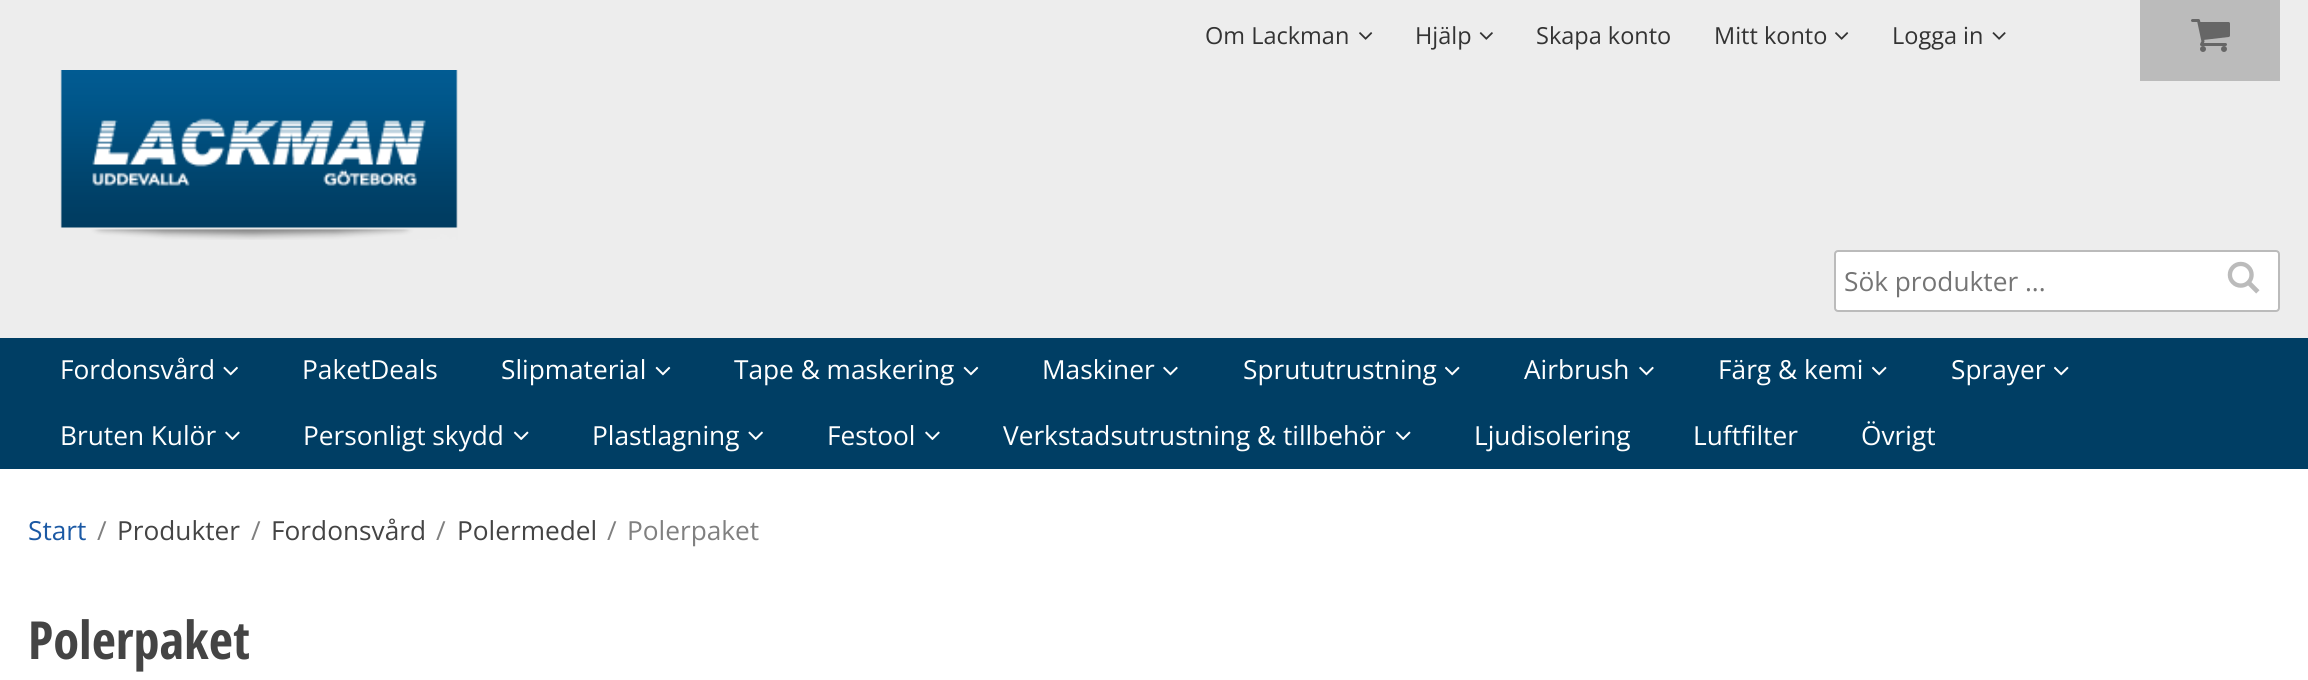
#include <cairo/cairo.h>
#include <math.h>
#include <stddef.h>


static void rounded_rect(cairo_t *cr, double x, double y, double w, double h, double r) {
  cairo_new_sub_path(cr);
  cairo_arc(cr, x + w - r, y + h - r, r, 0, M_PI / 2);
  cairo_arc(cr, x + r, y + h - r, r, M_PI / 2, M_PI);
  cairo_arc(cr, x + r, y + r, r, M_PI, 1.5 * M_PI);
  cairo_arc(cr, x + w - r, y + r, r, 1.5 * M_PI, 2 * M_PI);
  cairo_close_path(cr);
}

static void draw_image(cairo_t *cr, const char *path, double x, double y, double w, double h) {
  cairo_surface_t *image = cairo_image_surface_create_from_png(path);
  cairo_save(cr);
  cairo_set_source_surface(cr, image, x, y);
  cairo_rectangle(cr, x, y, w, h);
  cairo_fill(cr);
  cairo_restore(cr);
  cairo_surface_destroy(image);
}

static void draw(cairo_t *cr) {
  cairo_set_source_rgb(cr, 1, 1, 1);
  cairo_paint(cr);
  cairo_set_source_rgb(cr, 237 / 255.0, 237 / 255.0, 237 / 255.0);
  cairo_rectangle(cr, 0, 0, 2308, 338);
  cairo_fill(cr);
  draw_image(cr, "images/1.png", 1359, 32, 14, 8);
  draw_image(cr, "images/2.png", 1479, 32, 14, 8);
  draw_image(cr, "images/1.png", 1835, 32, 14, 8);
  draw_image(cr, "images/3.png", 1992, 32, 14, 8);
  cairo_set_source_rgb(cr, 187 / 255.0, 187 / 255.0, 187 / 255.0);
  cairo_rectangle(cr, 2140, 0, 140, 81);
  cairo_fill(cr);
  draw_image(cr, "images/4.png", 2191, 19, 39, 33);
  draw_image(cr, "images/5.png", 60, 70, 398, 170);
  cairo_set_source_rgb(cr, 1, 1, 1);
  rounded_rect(cr, 1835, 251, 444, 60, 3);
  cairo_fill_preserve(cr);
  cairo_set_source_rgb(cr, 187 / 255.0, 187 / 255.0, 187 / 255.0);
  cairo_stroke(cr);
  draw_image(cr, "images/6.png", 2227, 261, 33, 33);
  cairo_set_source_rgb(cr, 0, 62 / 255.0, 100 / 255.0);
  cairo_rectangle(cr, 0, 338, 2308, 131);
  cairo_fill(cr);
  draw_image(cr, "images/7.png", 223, 366, 15, 10);
  draw_image(cr, "images/8.png", 655, 366, 16, 10);
  draw_image(cr, "images/8.png", 963, 366, 16, 10);
  draw_image(cr, "images/9.png", 1163, 366, 15, 10);
  draw_image(cr, "images/10.png", 1445, 366, 15, 10);
  draw_image(cr, "images/9.png", 1639, 366, 15, 10);
  draw_image(cr, "images/10.png", 1872, 366, 15, 10);
  draw_image(cr, "images/10.png", 2054, 366, 15, 10);
  draw_image(cr, "images/11.png", 225, 431, 15, 9);
  draw_image(cr, "images/12.png", 513, 431, 16, 9);
  draw_image(cr, "images/13.png", 748, 431, 15, 9);
  draw_image(cr, "images/11.png", 925, 431, 15, 9);
  draw_image(cr, "images/12.png", 1395, 431, 16, 9);
  cairo_select_font_face(cr, "Open Sans", CAIRO_FONT_SLANT_NORMAL, CAIRO_FONT_WEIGHT_NORMAL);
  cairo_set_font_size(cr, 23.5);
  cairo_set_source_rgb(cr, 51 / 255.0, 51 / 255.0, 51 / 255.0);
  cairo_move_to(cr, 1205, 44);
  cairo_show_text(cr, "Om Lackman");
  cairo_move_to(cr, 1415, 44);
  cairo_show_text(cr, "Hjälp");
  cairo_move_to(cr, 1536, 44);
  cairo_show_text(cr, "Skapa konto");
  cairo_move_to(cr, 1714, 44);
  cairo_show_text(cr, "Mitt konto");
  cairo_move_to(cr, 1892, 44);
  cairo_show_text(cr, "Logga in");
  cairo_set_font_size(cr, 26.25);
  cairo_set_source_rgb(cr, 117 / 255.0, 117 / 255.0, 117 / 255.0);
  cairo_move_to(cr, 1844, 291);
  cairo_show_text(cr, "Sök produkter ...");
  cairo_set_source_rgb(cr, 1, 1, 1);
  cairo_move_to(cr, 60, 379);
  cairo_show_text(cr, "Fordonsvård");
  cairo_move_to(cr, 302, 379);
  cairo_show_text(cr, "PaketDeals");
  cairo_move_to(cr, 501, 379);
  cairo_show_text(cr, "Slipmaterial");
  cairo_move_to(cr, 734, 379);
  cairo_show_text(cr, "Tape & maskering");
  cairo_move_to(cr, 1042, 379);
  cairo_show_text(cr, "Maskiner");
  cairo_move_to(cr, 1243, 379);
  cairo_show_text(cr, "Sprututrustning");
  cairo_move_to(cr, 1524, 379);
  cairo_show_text(cr, "Airbrush");
  cairo_move_to(cr, 1718, 379);
  cairo_show_text(cr, "Färg & kemi");
  cairo_move_to(cr, 1951, 379);
  cairo_show_text(cr, "Sprayer");
  cairo_move_to(cr, 60, 445);
  cairo_show_text(cr, "Bruten Kulör");
  cairo_move_to(cr, 303, 445);
  cairo_show_text(cr, "Personligt skydd");
  cairo_move_to(cr, 592, 445);
  cairo_show_text(cr, "Plastlagning");
  cairo_move_to(cr, 827, 445);
  cairo_show_text(cr, "Festool");
  cairo_move_to(cr, 1003, 445);
  cairo_show_text(cr, "Verkstadsutrustning & tillbehör");
  cairo_move_to(cr, 1474, 445);
  cairo_show_text(cr, "Ljudisolering");
  cairo_move_to(cr, 1693, 445);
  cairo_show_text(cr, "Luftfilter");
  cairo_move_to(cr, 1861, 445);
  cairo_show_text(cr, "Övrigt");
  cairo_set_source_rgb(cr, 27 / 255.0, 89 / 255.0, 164 / 255.0);
  cairo_move_to(cr, 28, 540);
  cairo_show_text(cr, "Start");
  cairo_set_source_rgb(cr, 128 / 255.0, 128 / 255.0, 128 / 255.0);
  cairo_move_to(cr, 97, 540);
  cairo_show_text(cr, "/");
  cairo_set_source_rgb(cr, 68 / 255.0, 68 / 255.0, 68 / 255.0);
  cairo_move_to(cr, 117, 540);
  cairo_show_text(cr, "Produkter");
  cairo_set_source_rgb(cr, 128 / 255.0, 128 / 255.0, 128 / 255.0);
  cairo_move_to(cr, 251, 540);
  cairo_show_text(cr, "/");
  cairo_set_source_rgb(cr, 68 / 255.0, 68 / 255.0, 68 / 255.0);
  cairo_move_to(cr, 271, 540);
  cairo_show_text(cr, "Fordonsvård");
  cairo_set_source_rgb(cr, 128 / 255.0, 128 / 255.0, 128 / 255.0);
  cairo_move_to(cr, 436, 540);
  cairo_show_text(cr, "/");
  cairo_set_source_rgb(cr, 68 / 255.0, 68 / 255.0, 68 / 255.0);
  cairo_move_to(cr, 457, 540);
  cairo_show_text(cr, "Polermedel");
  cairo_set_source_rgb(cr, 128 / 255.0, 128 / 255.0, 128 / 255.0);
  cairo_move_to(cr, 607, 540);
  cairo_show_text(cr, "/");
  cairo_move_to(cr, 627, 540);
  cairo_show_text(cr, "Polerpaket");
  cairo_select_font_face(cr, "Open Sans Condensed", CAIRO_FONT_SLANT_NORMAL, CAIRO_FONT_WEIGHT_BOLD);
  cairo_set_font_size(cr, 52.5);
  cairo_set_source_rgb(cr, 68 / 255.0, 68 / 255.0, 68 / 255.0);
  cairo_move_to(cr, 28, 659);
  cairo_show_text(cr, "Polerpaket");
}

int main(void) {
  cairo_surface_t *surface = cairo_image_surface_create(CAIRO_FORMAT_RGB24, 2308, 680);
  cairo_t *cr = cairo_create(surface);
  cairo_font_options_t *options = cairo_font_options_create();
  cairo_font_options_set_hint_metrics(options, CAIRO_HINT_METRICS_OFF);
  cairo_font_options_set_hint_style(options, CAIRO_HINT_STYLE_NONE);
  cairo_set_font_options(cr, options);
  cairo_set_miter_limit(cr, 4);
  draw(cr);
  cairo_surface_write_to_png(surface, "out.png");
  cairo_font_options_destroy(options);
  cairo_destroy(cr);
  cairo_surface_destroy(surface);
  return 0;
}
